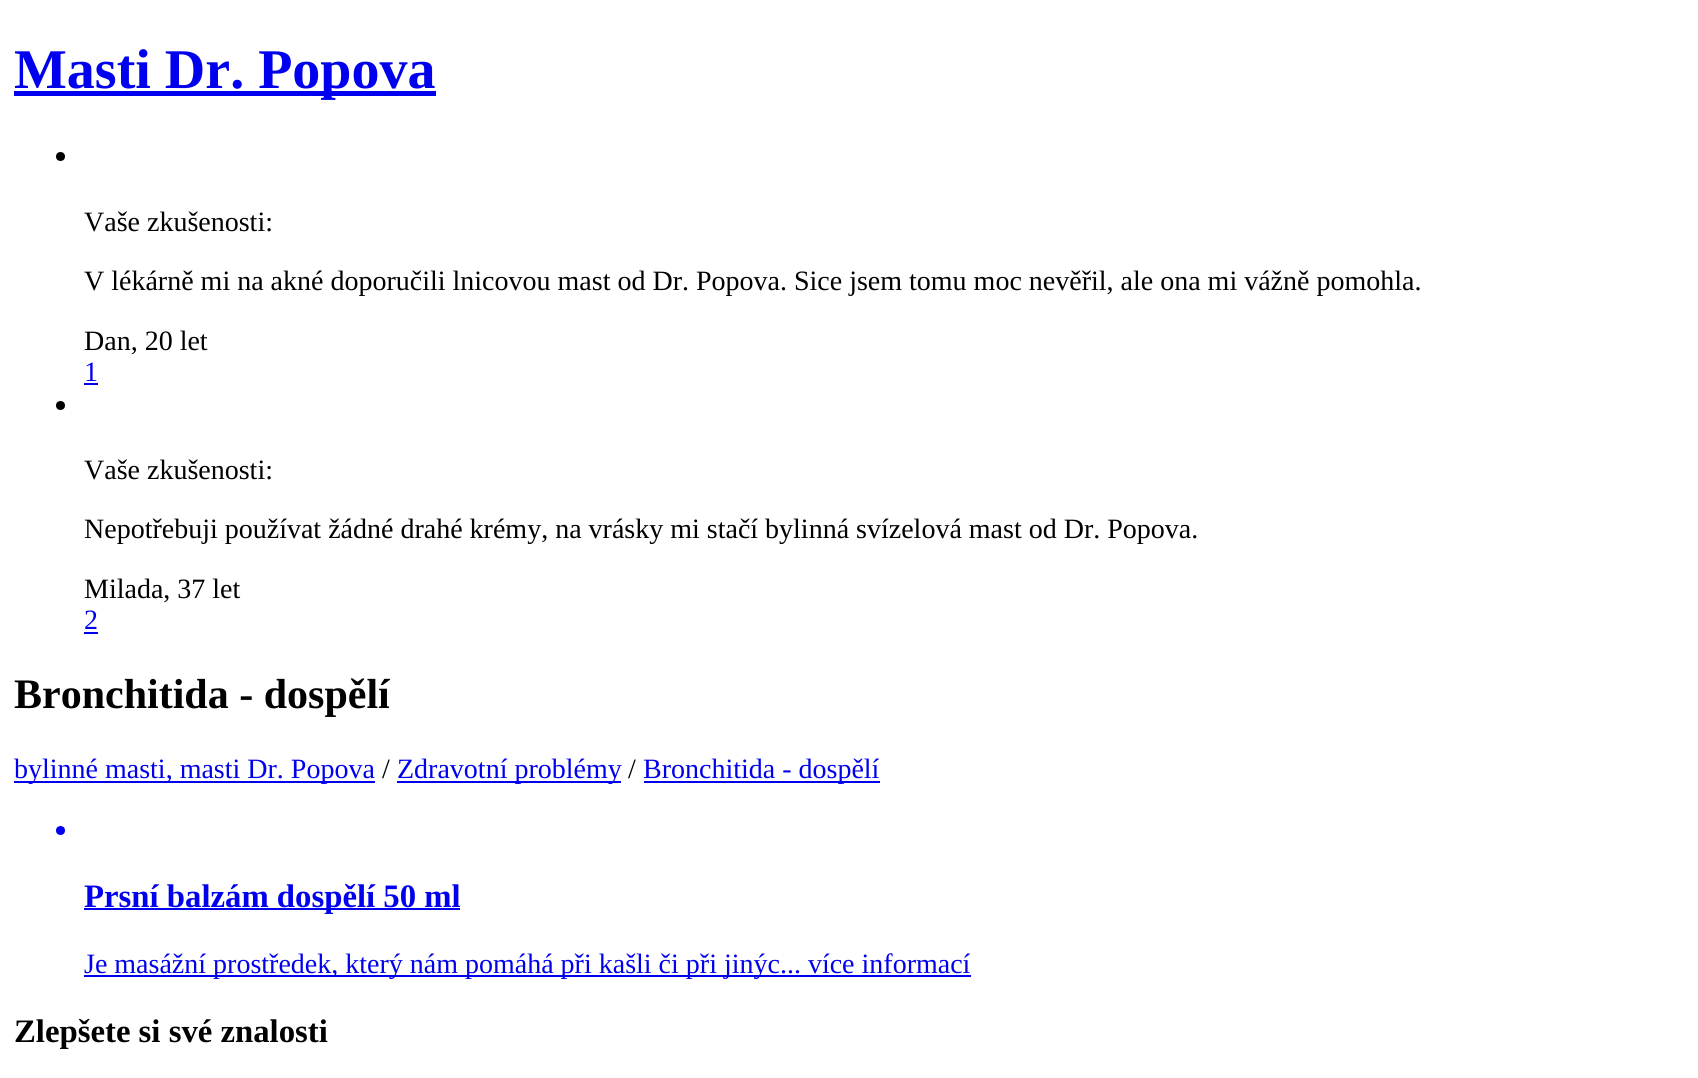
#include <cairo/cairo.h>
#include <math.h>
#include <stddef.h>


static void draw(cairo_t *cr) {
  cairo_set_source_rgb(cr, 1, 1, 1);
  cairo_paint(cr);
  cairo_set_source_rgb(cr, 0, 0, 238 / 255.0);
  cairo_rectangle(cr, 14, 91, 422, 5);
  cairo_fill(cr);
  cairo_set_source_rgb(cr, 0, 0, 0);
  cairo_arc(cr, 60.5, 156.5, 4.5, 0, 2 * M_PI);
  cairo_fill(cr);
  cairo_set_source_rgb(cr, 0, 0, 238 / 255.0);
  cairo_rectangle(cr, 84, 383, 14, 2);
  cairo_fill(cr);
  cairo_set_source_rgb(cr, 0, 0, 0);
  cairo_arc(cr, 60.5, 405.5, 4.5, 0, 2 * M_PI);
  cairo_fill(cr);
  cairo_set_source_rgb(cr, 0, 0, 238 / 255.0);
  cairo_rectangle(cr, 84, 632, 14, 2);
  cairo_fill(cr);
  cairo_rectangle(cr, 14, 781, 361, 2);
  cairo_fill(cr);
  cairo_rectangle(cr, 397, 781, 224, 2);
  cairo_fill(cr);
  cairo_rectangle(cr, 644, 781, 236, 2);
  cairo_fill(cr);
  cairo_arc(cr, 60.5, 830.5, 4.5, 0, 2 * M_PI);
  cairo_fill(cr);
  cairo_rectangle(cr, 84, 908, 376, 2);
  cairo_fill(cr);
  cairo_rectangle(cr, 84, 975, 887, 2);
  cairo_fill(cr);
  cairo_select_font_face(cr, "Liberation Serif", CAIRO_FONT_SLANT_NORMAL, CAIRO_FONT_WEIGHT_BOLD);
  cairo_set_font_size(cr, 56);
  cairo_move_to(cr, 14, 88);
  cairo_show_text(cr, "Masti Dr. Popova");
  cairo_select_font_face(cr, "Liberation Serif", CAIRO_FONT_SLANT_NORMAL, CAIRO_FONT_WEIGHT_NORMAL);
  cairo_set_font_size(cr, 28);
  cairo_set_source_rgb(cr, 0, 0, 0);
  cairo_move_to(cr, 84, 231);
  cairo_show_text(cr, "Vaše zkušenosti:");
  cairo_move_to(cr, 84, 290);
  cairo_show_text(cr, "V lékárně mi na akné doporučili lnicovou mast od Dr. Popova. Sice jsem tomu moc nevěřil, ale ona mi vážně pomohla.");
  cairo_move_to(cr, 84, 350);
  cairo_show_text(cr, "Dan, 20 let");
  cairo_set_source_rgb(cr, 0, 0, 238 / 255.0);
  cairo_move_to(cr, 84, 381);
  cairo_show_text(cr, "1");
  cairo_set_source_rgb(cr, 0, 0, 0);
  cairo_move_to(cr, 84, 479);
  cairo_show_text(cr, "Vaše zkušenosti:");
  cairo_move_to(cr, 84, 538);
  cairo_show_text(cr, "Nepotřebuji používat žádné drahé krémy, na vrásky mi stačí bylinná svízelová mast od Dr. Popova.");
  cairo_move_to(cr, 84, 598);
  cairo_show_text(cr, "Milada, 37 let");
  cairo_set_source_rgb(cr, 0, 0, 238 / 255.0);
  cairo_move_to(cr, 84, 629);
  cairo_show_text(cr, "2");
  cairo_select_font_face(cr, "Liberation Serif", CAIRO_FONT_SLANT_NORMAL, CAIRO_FONT_WEIGHT_BOLD);
  cairo_set_font_size(cr, 42);
  cairo_set_source_rgb(cr, 0, 0, 0);
  cairo_move_to(cr, 14, 708);
  cairo_show_text(cr, "Bronchitida - dospělí");
  cairo_select_font_face(cr, "Liberation Serif", CAIRO_FONT_SLANT_NORMAL, CAIRO_FONT_WEIGHT_NORMAL);
  cairo_set_font_size(cr, 28);
  cairo_set_source_rgb(cr, 0, 0, 238 / 255.0);
  cairo_move_to(cr, 14, 778);
  cairo_show_text(cr, "bylinné masti, masti Dr. Popova");
  cairo_set_source_rgb(cr, 0, 0, 0);
  cairo_move_to(cr, 382, 778);
  cairo_show_text(cr, "/");
  cairo_set_source_rgb(cr, 0, 0, 238 / 255.0);
  cairo_move_to(cr, 397, 778);
  cairo_show_text(cr, "Zdravotní problémy");
  cairo_set_source_rgb(cr, 0, 0, 0);
  cairo_move_to(cr, 628, 778);
  cairo_show_text(cr, "/");
  cairo_set_source_rgb(cr, 0, 0, 238 / 255.0);
  cairo_move_to(cr, 643, 778);
  cairo_show_text(cr, "Bronchitida - dospělí");
  cairo_select_font_face(cr, "Liberation Serif", CAIRO_FONT_SLANT_NORMAL, CAIRO_FONT_WEIGHT_BOLD);
  cairo_set_font_size(cr, 32.75);
  cairo_move_to(cr, 84, 907);
  cairo_show_text(cr, "Prsní balzám dospělí 50 ml");
  cairo_select_font_face(cr, "Liberation Serif", CAIRO_FONT_SLANT_NORMAL, CAIRO_FONT_WEIGHT_NORMAL);
  cairo_set_font_size(cr, 28);
  cairo_move_to(cr, 84, 973);
  cairo_show_text(cr, "Je masážní prostředek, který nám pomáhá při kašli či při jinýc... více informací");
  cairo_select_font_face(cr, "Liberation Serif", CAIRO_FONT_SLANT_NORMAL, CAIRO_FONT_WEIGHT_BOLD);
  cairo_set_font_size(cr, 32.75);
  cairo_set_source_rgb(cr, 0, 0, 0);
  cairo_move_to(cr, 14, 1042);
  cairo_show_text(cr, "Zlepšete si své znalosti");
}

int main(void) {
  cairo_surface_t *surface = cairo_image_surface_create(CAIRO_FORMAT_RGB24, 1698, 1078);
  cairo_t *cr = cairo_create(surface);
  cairo_font_options_t *options = cairo_font_options_create();
  cairo_font_options_set_hint_metrics(options, CAIRO_HINT_METRICS_OFF);
  cairo_font_options_set_hint_style(options, CAIRO_HINT_STYLE_NONE);
  cairo_set_font_options(cr, options);
  cairo_set_miter_limit(cr, 4);
  draw(cr);
  cairo_surface_write_to_png(surface, "out.png");
  cairo_font_options_destroy(options);
  cairo_destroy(cr);
  cairo_surface_destroy(surface);
  return 0;
}
